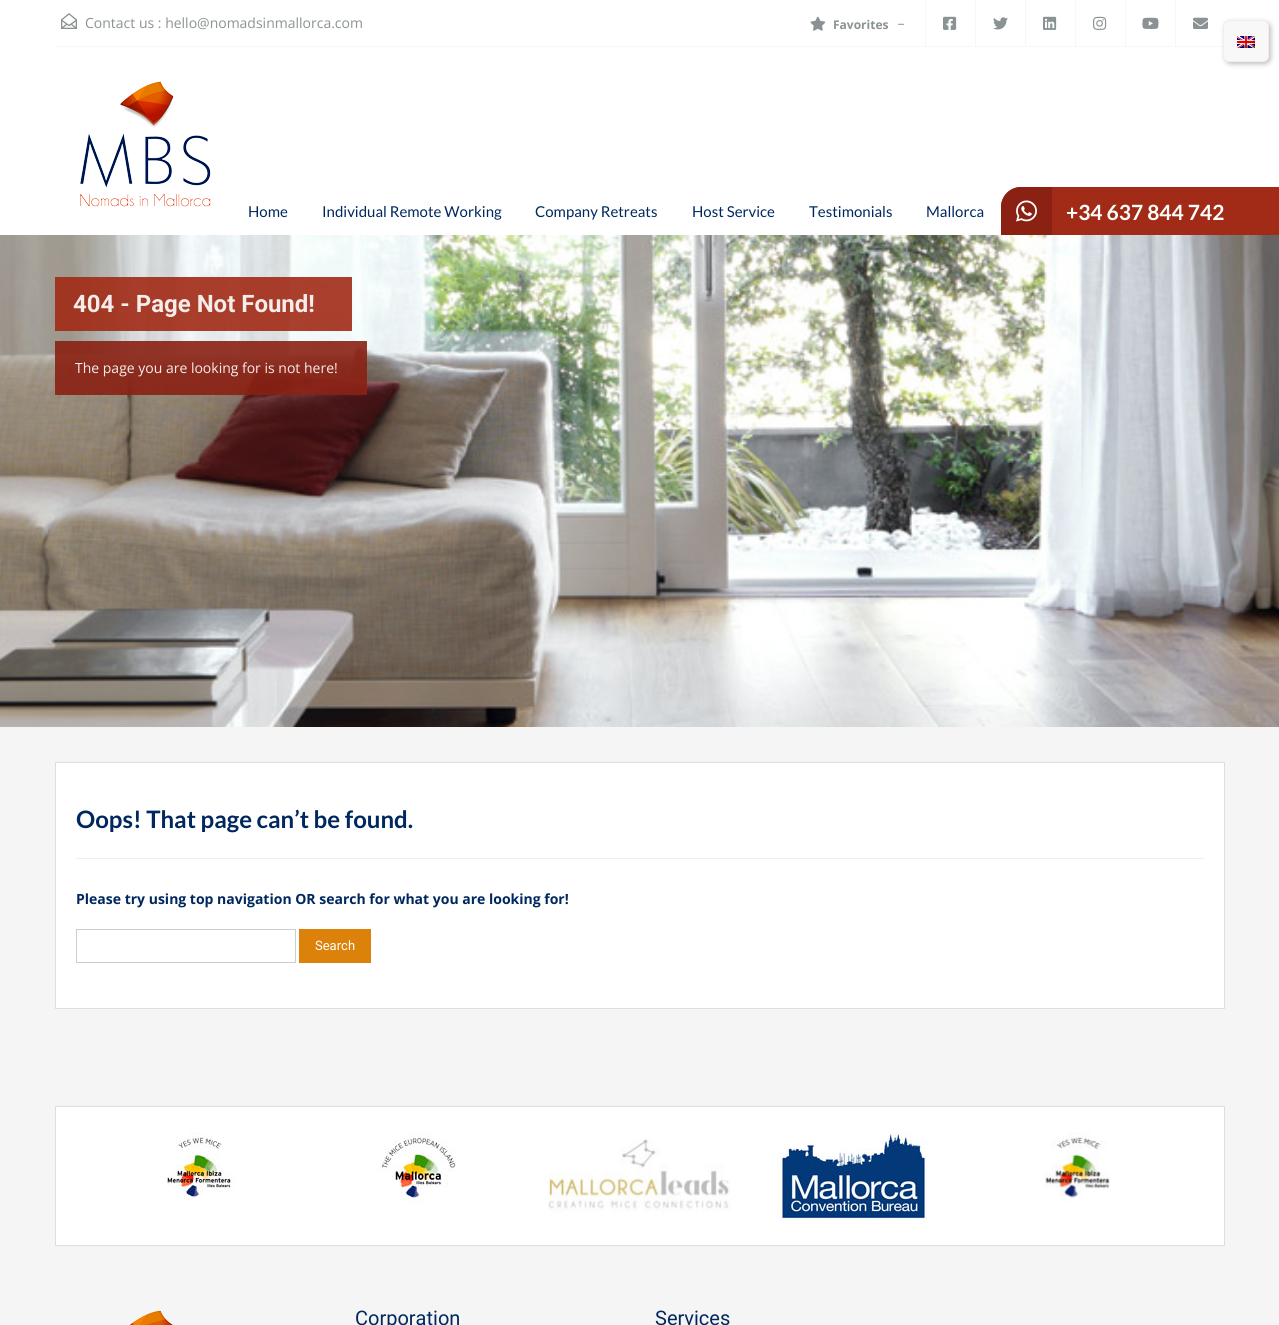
#include <cairo/cairo.h>
#include <math.h>
#include <stddef.h>


static void rounded_rect(cairo_t *cr, double x, double y, double w, double h, double r) {
  cairo_new_sub_path(cr);
  cairo_arc(cr, x + w - r, y + h - r, r, 0, M_PI / 2);
  cairo_arc(cr, x + r, y + h - r, r, M_PI / 2, M_PI);
  cairo_arc(cr, x + r, y + r, r, M_PI, 1.5 * M_PI);
  cairo_arc(cr, x + w - r, y + r, r, 1.5 * M_PI, 2 * M_PI);
  cairo_close_path(cr);
}

static void draw_shadow(cairo_t *cr, double x, double y, double w, double h, double r, double blur, double alpha) {
  cairo_push_group_with_content(cr, CAIRO_CONTENT_ALPHA);
  cairo_set_operator(cr, CAIRO_OPERATOR_SOURCE);
  for (int i = 15; i >= -15 && fmin(w, h) + blur * i / 3 > 0; i -= 2) {
    double e = blur * i / 6;
    cairo_set_source_rgba(cr, 0, 0, 0, alpha * erfc((i - 1) / 8.5) / 2);
    rounded_rect(cr, x - e, y - e, w + 2 * e, h + 2 * e, fmax(0, fmin(r + e + blur * .6, fmin(w, h) / 2 + e)));
    cairo_fill(cr);
  }
  cairo_pattern_t *soft = cairo_pop_group(cr);
  cairo_mask(cr, soft);
  cairo_pattern_destroy(soft);
}

static void draw_image(cairo_t *cr, const char *path, double x, double y, double w, double h) {
  cairo_surface_t *image = cairo_image_surface_create_from_png(path);
  cairo_save(cr);
  cairo_set_source_surface(cr, image, x, y);
  cairo_rectangle(cr, x, y, w, h);
  cairo_fill(cr);
  cairo_restore(cr);
  cairo_surface_destroy(image);
}

static void draw(cairo_t *cr) {
  cairo_set_source_rgb(cr, 245 / 255.0, 245 / 255.0, 245 / 255.0);
  cairo_paint(cr);
  cairo_set_source_rgb(cr, 1, 1, 1);
  cairo_rectangle(cr, 0, 0, 1279, 235);
  cairo_fill(cr);
  cairo_set_source_rgb(cr, 247 / 255.0, 247 / 255.0, 247 / 255.0);
  cairo_rectangle(cr, 55, 46, 1170, 1);
  cairo_fill(cr);
  draw_image(cr, "images/1.png", 61, 13, 16, 16);
  draw_image(cr, "images/2.png", 810, 16, 16, 15);
  draw_image(cr, "images/3.png", 898, 23, 7, 2);
  cairo_rectangle(cr, 925, 0, 1, 46);
  cairo_fill(cr);
  draw_image(cr, "images/4.png", 943, 16, 14, 14);
  cairo_rectangle(cr, 975, 0, 1, 46);
  cairo_fill(cr);
  draw_image(cr, "images/5.png", 993, 17, 15, 13);
  cairo_rectangle(cr, 1025, 0, 1, 46);
  cairo_fill(cr);
  draw_image(cr, "images/6.png", 1043, 16, 14, 14);
  cairo_rectangle(cr, 1075, 0, 1, 46);
  cairo_fill(cr);
  draw_image(cr, "images/7.png", 1093, 16, 14, 14);
  cairo_rectangle(cr, 1125, 0, 1, 46);
  cairo_fill(cr);
  draw_image(cr, "images/8.png", 1142, 17, 17, 12);
  cairo_rectangle(cr, 1175, 0, 1, 46);
  cairo_fill(cr);
  draw_image(cr, "images/9.png", 1193, 17, 15, 12);
  draw_image(cr, "images/10.png", 80, 81, 131, 126);
  cairo_set_source_rgb(cr, 161 / 255.0, 43 / 255.0, 22 / 255.0);
  cairo_new_path(cr);
  cairo_move_to(cr, 1021, 187);
  cairo_line_to(cr, 1225, 187);
  cairo_line_to(cr, 1225, 235);
  cairo_line_to(cr, 1001, 235);
  cairo_line_to(cr, 1001, 207);
  cairo_curve_to(cr, 1001, 196, 1010, 187, 1021, 187);
  cairo_close_path(cr);
  cairo_fill(cr);
  cairo_set_source_rgb(cr, 138 / 255.0, 33 / 255.0, 19 / 255.0);
  cairo_new_path(cr);
  cairo_move_to(cr, 1021, 187);
  cairo_line_to(cr, 1052, 187);
  cairo_line_to(cr, 1052, 235);
  cairo_line_to(cr, 1001, 235);
  cairo_line_to(cr, 1001, 207);
  cairo_curve_to(cr, 1001, 196, 1010, 187, 1021, 187);
  cairo_close_path(cr);
  cairo_fill(cr);
  draw_image(cr, "images/11.png", 1016, 200, 21, 22);
  cairo_set_source_rgb(cr, 161 / 255.0, 43 / 255.0, 22 / 255.0);
  cairo_rectangle(cr, 1225, 187, 54, 48);
  cairo_fill(cr);
  cairo_set_source_rgb(cr, 0, 0, 0);
  draw_shadow(cr, 1225, 22, 46, 42, 6, 2.5, 0.25);
  cairo_set_source_rgb(cr, 248 / 255.0, 248 / 255.0, 248 / 255.0);
  rounded_rect(cr, 1223.5, 20.5, 45, 41, 5.5);
  cairo_fill_preserve(cr);
  cairo_set_source_rgb(cr, 238 / 255.0, 238 / 255.0, 238 / 255.0);
  cairo_set_line_width(cr, 1);
  cairo_stroke(cr);
  draw_image(cr, "images/12.png", 1237, 36, 18, 12);
  draw_image(cr, "images/13.png", 0, 235, 1279, 492);
  cairo_set_source_rgba(cr, 161 / 255.0, 43 / 255.0, 22 / 255.0, 0.9);
  cairo_rectangle(cr, 55, 277, 297, 54);
  cairo_fill(cr);
  cairo_set_source_rgba(cr, 138 / 255.0, 33 / 255.0, 19 / 255.0, 0.9);
  cairo_rectangle(cr, 55, 341, 312, 54);
  cairo_fill(cr);
  cairo_set_source_rgb(cr, 222 / 255.0, 222 / 255.0, 222 / 255.0);
  cairo_rectangle(cr, 1224, 762, 1, 247);
  cairo_fill(cr);
  cairo_rectangle(cr, 55, 762, 1, 247);
  cairo_fill(cr);
  cairo_set_source_rgb(cr, 1, 1, 1);
  cairo_rectangle(cr, 56, 763, 1168, 245);
  cairo_fill(cr);
  cairo_set_source_rgb(cr, 222 / 255.0, 222 / 255.0, 222 / 255.0);
  cairo_rectangle(cr, 56, 762, 1168, 1);
  cairo_fill(cr);
  cairo_rectangle(cr, 56, 1008, 1168, 1);
  cairo_fill(cr);
  cairo_set_source_rgb(cr, 238 / 255.0, 238 / 255.0, 238 / 255.0);
  cairo_rectangle(cr, 76, 858, 1128, 1);
  cairo_fill(cr);
  cairo_rectangle(cr, 76.5, 929.5, 219, 33);
  cairo_set_source_rgb(cr, 205 / 255.0, 205 / 255.0, 205 / 255.0);
  cairo_stroke(cr);
  cairo_set_source_rgb(cr, 220 / 255.0, 130 / 255.0, 10 / 255.0);
  cairo_rectangle(cr, 299, 929, 72, 34);
  cairo_fill(cr);
  cairo_set_source_rgb(cr, 1, 1, 1);
  cairo_rectangle(cr, 55.5, 1106.5, 1169, 139);
  cairo_fill_preserve(cr);
  cairo_set_source_rgb(cr, 222 / 255.0, 222 / 255.0, 222 / 255.0);
  cairo_stroke(cr);
  draw_image(cr, "images/14.png", 164, 1132, 72, 69);
  draw_image(cr, "images/15.png", 379, 1132, 77, 72);
  draw_image(cr, "images/16.png", 548, 1138, 183, 74);
  draw_image(cr, "images/17.png", 775, 1132, 152, 88);
  draw_image(cr, "images/18.png", 1044, 1132, 66, 69);
  draw_image(cr, "images/19.png", 129, 1310, 44, 15);
  cairo_select_font_face(cr, "Open Sans", CAIRO_FONT_SLANT_NORMAL, CAIRO_FONT_WEIGHT_NORMAL);
  cairo_set_font_size(cr, 14);
  cairo_set_source_rgb(cr, 139 / 255.0, 146 / 255.0, 147 / 255.0);
  cairo_move_to(cr, 85, 28);
  cairo_show_text(cr, "Contact us : hello@nomadsinmallorca.com");
  cairo_select_font_face(cr, "Open Sans", CAIRO_FONT_SLANT_NORMAL, CAIRO_FONT_WEIGHT_BOLD);
  cairo_set_font_size(cr, 12);
  cairo_move_to(cr, 833, 29);
  cairo_show_text(cr, "Favorites");
  cairo_select_font_face(cr, "Lato", CAIRO_FONT_SLANT_NORMAL, CAIRO_FONT_WEIGHT_NORMAL);
  cairo_set_font_size(cr, 15);
  cairo_set_source_rgb(cr, 0, 40 / 255.0, 95 / 255.0);
  cairo_move_to(cr, 248, 217);
  cairo_show_text(cr, "Home");
  cairo_move_to(cr, 322, 217);
  cairo_show_text(cr, "Individual Remote Working");
  cairo_move_to(cr, 535, 217);
  cairo_show_text(cr, "Company Retreats");
  cairo_move_to(cr, 692, 217);
  cairo_show_text(cr, "Host Service");
  cairo_move_to(cr, 809, 217);
  cairo_show_text(cr, "Testimonials");
  cairo_move_to(cr, 926, 217);
  cairo_show_text(cr, "Mallorca");
  cairo_select_font_face(cr, "Lato", CAIRO_FONT_SLANT_NORMAL, CAIRO_FONT_WEIGHT_BOLD);
  cairo_set_font_size(cr, 21);
  cairo_set_source_rgb(cr, 1, 1, 1);
  cairo_move_to(cr, 1066, 220);
  cairo_show_text(cr, "+34 637 844 742");
  cairo_select_font_face(cr, "Roboto", CAIRO_FONT_SLANT_NORMAL, CAIRO_FONT_WEIGHT_BOLD);
  cairo_set_font_size(cr, 24);
  cairo_set_source_rgb(cr, 246 / 255.0, 236 / 255.0, 234 / 255.0);
  cairo_move_to(cr, 73, 312);
  cairo_show_text(cr, "404 - Page Not Found!");
  cairo_select_font_face(cr, "Open Sans", CAIRO_FONT_SLANT_NORMAL, CAIRO_FONT_WEIGHT_NORMAL);
  cairo_set_font_size(cr, 14);
  cairo_move_to(cr, 75, 373);
  cairo_show_text(cr, "The page you are looking for is not here!");
  cairo_select_font_face(cr, "Lato", CAIRO_FONT_SLANT_NORMAL, CAIRO_FONT_WEIGHT_BOLD);
  cairo_set_font_size(cr, 24);
  cairo_set_source_rgb(cr, 0, 40 / 255.0, 95 / 255.0);
  cairo_move_to(cr, 76, 828);
  cairo_show_text(cr, "Oops! That page can’t be found.");
  cairo_select_font_face(cr, "Open Sans", CAIRO_FONT_SLANT_NORMAL, CAIRO_FONT_WEIGHT_BOLD);
  cairo_set_font_size(cr, 14);
  cairo_move_to(cr, 76, 904);
  cairo_show_text(cr, "Please try using top navigation OR search for what you are looking for!");
  cairo_select_font_face(cr, "Roboto", CAIRO_FONT_SLANT_NORMAL, CAIRO_FONT_WEIGHT_NORMAL);
  cairo_set_font_size(cr, 13);
  cairo_set_source_rgb(cr, 1, 1, 1);
  cairo_move_to(cr, 315, 950);
  cairo_show_text(cr, "Search");
  cairo_set_font_size(cr, 20);
  cairo_set_source_rgb(cr, 0, 40 / 255.0, 95 / 255.0);
  cairo_move_to(cr, 355, 1325);
  cairo_show_text(cr, "Corporation");
  cairo_move_to(cr, 655, 1325);
  cairo_show_text(cr, "Services");
}

int main(void) {
  cairo_surface_t *surface = cairo_image_surface_create(CAIRO_FORMAT_RGB24, 1279, 1325);
  cairo_t *cr = cairo_create(surface);
  cairo_font_options_t *options = cairo_font_options_create();
  cairo_font_options_set_hint_metrics(options, CAIRO_HINT_METRICS_OFF);
  cairo_font_options_set_hint_style(options, CAIRO_HINT_STYLE_NONE);
  cairo_set_font_options(cr, options);
  cairo_set_miter_limit(cr, 4);
  draw(cr);
  cairo_surface_write_to_png(surface, "out.png");
  cairo_font_options_destroy(options);
  cairo_destroy(cr);
  cairo_surface_destroy(surface);
  return 0;
}
